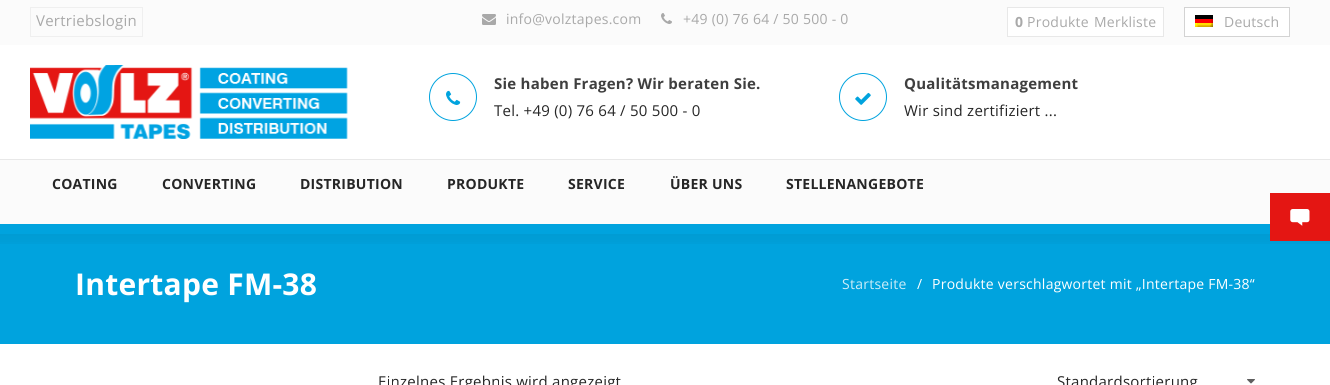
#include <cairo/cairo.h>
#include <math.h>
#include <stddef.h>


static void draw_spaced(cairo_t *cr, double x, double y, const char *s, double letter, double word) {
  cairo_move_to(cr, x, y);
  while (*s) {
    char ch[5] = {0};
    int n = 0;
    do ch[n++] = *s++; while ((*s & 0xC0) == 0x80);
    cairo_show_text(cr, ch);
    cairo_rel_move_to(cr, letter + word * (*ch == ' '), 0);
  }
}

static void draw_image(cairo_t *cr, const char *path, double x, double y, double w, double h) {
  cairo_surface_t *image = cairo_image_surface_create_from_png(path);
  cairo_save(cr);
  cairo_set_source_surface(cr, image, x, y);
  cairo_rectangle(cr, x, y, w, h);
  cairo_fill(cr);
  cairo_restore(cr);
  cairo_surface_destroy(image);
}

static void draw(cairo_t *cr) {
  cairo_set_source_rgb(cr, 1, 1, 1);
  cairo_paint(cr);
  cairo_set_source_rgb(cr, 251 / 255.0, 251 / 255.0, 251 / 255.0);
  cairo_rectangle(cr, 0, 0, 1330, 45);
  cairo_fill(cr);
  cairo_rectangle(cr, 30.5, 7.5, 112, 29);
  cairo_set_source_rgb(cr, 239 / 255.0, 239 / 255.0, 239 / 255.0);
  cairo_set_line_width(cr, 1);
  cairo_stroke(cr);
  draw_image(cr, "images/1.png", 482, 14, 14, 11);
  draw_image(cr, "images/2.png", 661, 13, 11, 11);
  cairo_set_source_rgb(cr, 1, 1, 1);
  cairo_rectangle(cr, 1007.5, 7.5, 156, 29);
  cairo_fill_preserve(cr);
  cairo_set_source_rgb(cr, 232 / 255.0, 232 / 255.0, 232 / 255.0);
  cairo_stroke(cr);
  cairo_set_source_rgb(cr, 1, 1, 1);
  cairo_rectangle(cr, 1184.5, 7.5, 105, 29);
  cairo_fill_preserve(cr);
  cairo_set_source_rgb(cr, 211 / 255.0, 211 / 255.0, 211 / 255.0);
  cairo_stroke(cr);
  draw_image(cr, "images/3.png", 1195, 15, 18, 12);
  draw_image(cr, "images/4.png", 30, 65, 318, 74);
  cairo_arc(cr, 453, 97, 23.5, 0, 2 * M_PI);
  cairo_set_source_rgb(cr, 0, 163 / 255.0, 222 / 255.0);
  cairo_stroke(cr);
  draw_image(cr, "images/5.png", 446, 90, 15, 15);
  cairo_arc(cr, 863, 97, 23.5, 0, 2 * M_PI);
  cairo_stroke(cr);
  draw_image(cr, "images/6.png", 855, 92, 16, 13);
  cairo_set_source_rgb(cr, 251 / 255.0, 251 / 255.0, 251 / 255.0);
  cairo_rectangle(cr, 0, 160, 1330, 64);
  cairo_fill(cr);
  cairo_set_source_rgb(cr, 232 / 255.0, 232 / 255.0, 232 / 255.0);
  cairo_rectangle(cr, 0, 159, 1330, 1);
  cairo_fill(cr);
  cairo_set_source_rgb(cr, 0, 163 / 255.0, 222 / 255.0);
  cairo_rectangle(cr, 0, 224, 1330, 120);
  cairo_fill(cr);
  draw_image(cr, "images/7.png", 0, 234, 1330, 10);
  draw_image(cr, "images/8.png", 1247, 379, 8, 5);
  cairo_set_source_rgb(cr, 228 / 255.0, 22 / 255.0, 19 / 255.0);
  cairo_rectangle(cr, 1270, 193, 60, 48);
  cairo_fill(cr);
  draw_image(cr, "images/9.png", 1290, 209, 20, 17);
  cairo_select_font_face(cr, "Open Sans", CAIRO_FONT_SLANT_NORMAL, CAIRO_FONT_WEIGHT_NORMAL);
  cairo_set_font_size(cr, 15);
  cairo_set_source_rgb(cr, 169 / 255.0, 169 / 255.0, 169 / 255.0);
  draw_spaced(cr, 36, 26, "Vertriebslogin", 0.25, 0);
  cairo_set_font_size(cr, 14);
  draw_spaced(cr, 506, 24, "info@volztapes.com", 0.25, 0);
  draw_spaced(cr, 683, 24, "+49 (0) 76 64 / 50 500 - 0", 0.25, 0);
  cairo_select_font_face(cr, "Open Sans", CAIRO_FONT_SLANT_NORMAL, CAIRO_FONT_WEIGHT_BOLD);
  draw_spaced(cr, 1015, 27, "0", 0.25, 0);
  cairo_select_font_face(cr, "Open Sans", CAIRO_FONT_SLANT_NORMAL, CAIRO_FONT_WEIGHT_NORMAL);
  draw_spaced(cr, 1027, 27, "Produkte", 0.25, 0);
  draw_spaced(cr, 1094, 27, "Merkliste", 0.25, 0);
  draw_spaced(cr, 1224, 27, "Deutsch", 0.25, 0);
  cairo_select_font_face(cr, "Open Sans", CAIRO_FONT_SLANT_NORMAL, CAIRO_FONT_WEIGHT_BOLD);
  cairo_set_font_size(cr, 15);
  cairo_set_source_rgb(cr, 63 / 255.0, 63 / 255.0, 63 / 255.0);
  draw_spaced(cr, 494, 89, "Sie haben Fragen? Wir beraten Sie.", 0.25, 0);
  cairo_select_font_face(cr, "Open Sans", CAIRO_FONT_SLANT_NORMAL, CAIRO_FONT_WEIGHT_NORMAL);
  cairo_set_source_rgb(cr, 38 / 255.0, 38 / 255.0, 38 / 255.0);
  draw_spaced(cr, 494, 116, "Tel. +49 (0) 76 64 / 50 500 - 0", 0.25, 0);
  cairo_select_font_face(cr, "Open Sans", CAIRO_FONT_SLANT_NORMAL, CAIRO_FONT_WEIGHT_BOLD);
  cairo_set_source_rgb(cr, 63 / 255.0, 63 / 255.0, 63 / 255.0);
  draw_spaced(cr, 904, 89, "Qualitätsmanagement", 0.25, 0);
  cairo_select_font_face(cr, "Open Sans", CAIRO_FONT_SLANT_NORMAL, CAIRO_FONT_WEIGHT_NORMAL);
  cairo_set_source_rgb(cr, 38 / 255.0, 38 / 255.0, 38 / 255.0);
  draw_spaced(cr, 904, 116, "Wir sind zertifiziert ...", 0.25, 0);
  cairo_select_font_face(cr, "Open Sans", CAIRO_FONT_SLANT_NORMAL, CAIRO_FONT_WEIGHT_BOLD);
  cairo_set_font_size(cr, 14);
  draw_spaced(cr, 52, 189, "COATING", 0.25, 0);
  draw_spaced(cr, 162, 189, "CONVERTING", 0.25, 0);
  draw_spaced(cr, 300, 189, "DISTRIBUTION", 0.25, 0);
  draw_spaced(cr, 447, 189, "PRODUKTE", 0.25, 0);
  draw_spaced(cr, 568, 189, "SERVICE", 0.25, 0);
  draw_spaced(cr, 670, 189, "ÜBER UNS", 0.25, 0);
  draw_spaced(cr, 786, 189, "STELLENANGEBOTE", 0.25, 0);
  cairo_set_font_size(cr, 30);
  cairo_set_source_rgb(cr, 1, 1, 1);
  draw_spaced(cr, 75, 295, "Intertape FM-38", 0.25, 0);
  cairo_select_font_face(cr, "Open Sans", CAIRO_FONT_SLANT_NORMAL, CAIRO_FONT_WEIGHT_NORMAL);
  cairo_set_font_size(cr, 14);
  cairo_set_source_rgb(cr, 204 / 255.0, 237 / 255.0, 248 / 255.0);
  draw_spaced(cr, 842, 289, "Startseite", 0.25, 0);
  cairo_set_source_rgb(cr, 1, 1, 1);
  draw_spaced(cr, 917, 289, "/", 0.25, 0);
  draw_spaced(cr, 932, 289, "Produkte verschlagwortet mit „Intertape FM-38“", 0.25, 0);
  cairo_set_font_size(cr, 15);
  cairo_set_source_rgb(cr, 38 / 255.0, 38 / 255.0, 38 / 255.0);
  draw_spaced(cr, 378, 387, "Einzelnes Ergebnis wird angezeigt", 0.25, 0);
  draw_spaced(cr, 1057, 387, "Standardsortierung", 0.25, 0);
}

int main(void) {
  cairo_surface_t *surface = cairo_image_surface_create(CAIRO_FORMAT_RGB24, 1330, 385);
  cairo_t *cr = cairo_create(surface);
  cairo_font_options_t *options = cairo_font_options_create();
  cairo_font_options_set_hint_metrics(options, CAIRO_HINT_METRICS_OFF);
  cairo_font_options_set_hint_style(options, CAIRO_HINT_STYLE_NONE);
  cairo_set_font_options(cr, options);
  cairo_set_miter_limit(cr, 4);
  draw(cr);
  cairo_surface_write_to_png(surface, "out.png");
  cairo_font_options_destroy(options);
  cairo_destroy(cr);
  cairo_surface_destroy(surface);
  return 0;
}
